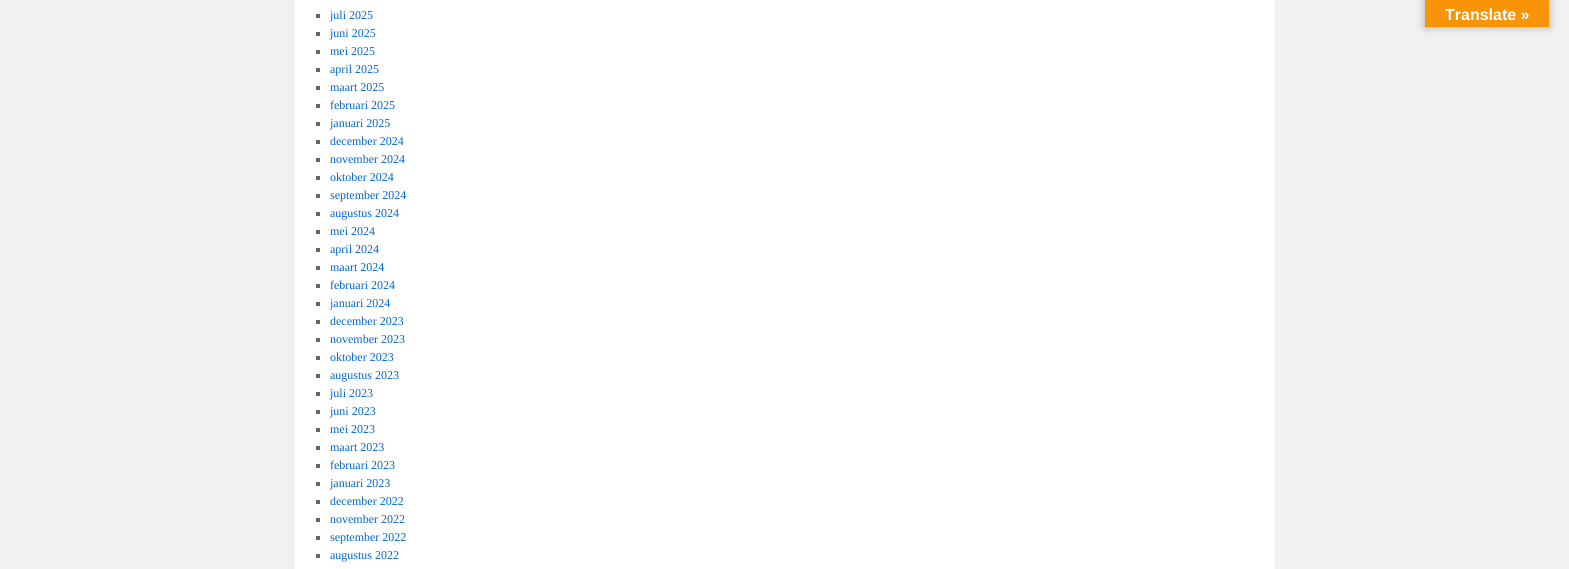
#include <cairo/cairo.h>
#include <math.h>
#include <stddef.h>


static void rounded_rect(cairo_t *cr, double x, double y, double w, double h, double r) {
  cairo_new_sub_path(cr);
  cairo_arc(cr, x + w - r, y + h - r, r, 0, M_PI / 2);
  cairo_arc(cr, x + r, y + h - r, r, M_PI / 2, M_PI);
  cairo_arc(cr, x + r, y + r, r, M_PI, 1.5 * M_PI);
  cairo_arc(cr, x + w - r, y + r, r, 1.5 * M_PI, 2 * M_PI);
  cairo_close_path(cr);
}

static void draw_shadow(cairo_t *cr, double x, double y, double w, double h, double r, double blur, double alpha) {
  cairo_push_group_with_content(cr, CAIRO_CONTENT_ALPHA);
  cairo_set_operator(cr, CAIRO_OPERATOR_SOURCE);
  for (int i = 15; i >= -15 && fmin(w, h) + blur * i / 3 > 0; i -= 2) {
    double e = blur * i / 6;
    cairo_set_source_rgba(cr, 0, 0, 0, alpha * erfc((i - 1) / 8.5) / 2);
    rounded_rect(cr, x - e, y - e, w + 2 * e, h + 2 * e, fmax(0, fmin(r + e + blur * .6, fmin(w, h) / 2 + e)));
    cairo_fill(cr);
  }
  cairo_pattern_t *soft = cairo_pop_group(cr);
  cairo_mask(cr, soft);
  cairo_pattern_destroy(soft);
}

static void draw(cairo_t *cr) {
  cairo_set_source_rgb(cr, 241 / 255.0, 241 / 255.0, 241 / 255.0);
  cairo_paint(cr);
  cairo_set_source_rgb(cr, 1, 1, 1);
  cairo_rectangle(cr, 295, 0, 980, 569);
  cairo_fill(cr);
  cairo_set_source_rgb(cr, 102 / 255.0, 102 / 255.0, 102 / 255.0);
  cairo_rectangle(cr, 316, 14, 4, 4);
  cairo_fill(cr);
  cairo_rectangle(cr, 316, 32, 4, 4);
  cairo_fill(cr);
  cairo_rectangle(cr, 316, 50, 4, 4);
  cairo_fill(cr);
  cairo_rectangle(cr, 316, 68, 4, 4);
  cairo_fill(cr);
  cairo_rectangle(cr, 316, 86, 4, 4);
  cairo_fill(cr);
  cairo_rectangle(cr, 316, 104, 4, 4);
  cairo_fill(cr);
  cairo_rectangle(cr, 316, 122, 4, 4);
  cairo_fill(cr);
  cairo_rectangle(cr, 316, 140, 4, 4);
  cairo_fill(cr);
  cairo_rectangle(cr, 316, 158, 4, 4);
  cairo_fill(cr);
  cairo_rectangle(cr, 316, 176, 4, 4);
  cairo_fill(cr);
  cairo_rectangle(cr, 316, 194, 4, 4);
  cairo_fill(cr);
  cairo_rectangle(cr, 316, 212, 4, 4);
  cairo_fill(cr);
  cairo_rectangle(cr, 316, 230, 4, 4);
  cairo_fill(cr);
  cairo_rectangle(cr, 316, 248, 4, 4);
  cairo_fill(cr);
  cairo_rectangle(cr, 316, 266, 4, 4);
  cairo_fill(cr);
  cairo_rectangle(cr, 316, 284, 4, 4);
  cairo_fill(cr);
  cairo_rectangle(cr, 316, 302, 4, 4);
  cairo_fill(cr);
  cairo_rectangle(cr, 316, 320, 4, 4);
  cairo_fill(cr);
  cairo_rectangle(cr, 316, 338, 4, 4);
  cairo_fill(cr);
  cairo_rectangle(cr, 316, 356, 4, 4);
  cairo_fill(cr);
  cairo_rectangle(cr, 316, 374, 4, 4);
  cairo_fill(cr);
  cairo_rectangle(cr, 316, 392, 4, 4);
  cairo_fill(cr);
  cairo_rectangle(cr, 316, 410, 4, 4);
  cairo_fill(cr);
  cairo_rectangle(cr, 316, 428, 4, 4);
  cairo_fill(cr);
  cairo_rectangle(cr, 316, 446, 4, 4);
  cairo_fill(cr);
  cairo_rectangle(cr, 316, 464, 4, 4);
  cairo_fill(cr);
  cairo_rectangle(cr, 316, 482, 4, 4);
  cairo_fill(cr);
  cairo_rectangle(cr, 316, 500, 4, 4);
  cairo_fill(cr);
  cairo_rectangle(cr, 316, 518, 4, 4);
  cairo_fill(cr);
  cairo_rectangle(cr, 316, 536, 4, 4);
  cairo_fill(cr);
  cairo_rectangle(cr, 316, 554, 4, 4);
  cairo_fill(cr);
  cairo_set_source_rgb(cr, 0, 0, 0);
  draw_shadow(cr, 1425, 0, 124, 27, 0, 4.5, 0.3);
  cairo_set_source_rgb(cr, 248 / 255.0, 148 / 255.0, 6 / 255.0);
  cairo_rectangle(cr, 1425, 0, 124, 27);
  cairo_fill(cr);
  cairo_select_font_face(cr, "Liberation Serif", CAIRO_FONT_SLANT_NORMAL, CAIRO_FONT_WEIGHT_NORMAL);
  cairo_set_font_size(cr, 12);
  cairo_set_source_rgb(cr, 0, 102 / 255.0, 204 / 255.0);
  cairo_move_to(cr, 330, 19);
  cairo_show_text(cr, "juli 2025");
  cairo_move_to(cr, 330, 37);
  cairo_show_text(cr, "juni 2025");
  cairo_move_to(cr, 330, 55);
  cairo_show_text(cr, "mei 2025");
  cairo_move_to(cr, 330, 73);
  cairo_show_text(cr, "april 2025");
  cairo_move_to(cr, 330, 91);
  cairo_show_text(cr, "maart 2025");
  cairo_move_to(cr, 330, 109);
  cairo_show_text(cr, "februari 2025");
  cairo_move_to(cr, 330, 127);
  cairo_show_text(cr, "januari 2025");
  cairo_move_to(cr, 330, 145);
  cairo_show_text(cr, "december 2024");
  cairo_move_to(cr, 330, 163);
  cairo_show_text(cr, "november 2024");
  cairo_move_to(cr, 330, 181);
  cairo_show_text(cr, "oktober 2024");
  cairo_move_to(cr, 330, 199);
  cairo_show_text(cr, "september 2024");
  cairo_move_to(cr, 330, 217);
  cairo_show_text(cr, "augustus 2024");
  cairo_move_to(cr, 330, 235);
  cairo_show_text(cr, "mei 2024");
  cairo_move_to(cr, 330, 253);
  cairo_show_text(cr, "april 2024");
  cairo_move_to(cr, 330, 271);
  cairo_show_text(cr, "maart 2024");
  cairo_move_to(cr, 330, 289);
  cairo_show_text(cr, "februari 2024");
  cairo_move_to(cr, 330, 307);
  cairo_show_text(cr, "januari 2024");
  cairo_move_to(cr, 330, 325);
  cairo_show_text(cr, "december 2023");
  cairo_move_to(cr, 330, 343);
  cairo_show_text(cr, "november 2023");
  cairo_move_to(cr, 330, 361);
  cairo_show_text(cr, "oktober 2023");
  cairo_move_to(cr, 330, 379);
  cairo_show_text(cr, "augustus 2023");
  cairo_move_to(cr, 330, 397);
  cairo_show_text(cr, "juli 2023");
  cairo_move_to(cr, 330, 415);
  cairo_show_text(cr, "juni 2023");
  cairo_move_to(cr, 330, 433);
  cairo_show_text(cr, "mei 2023");
  cairo_move_to(cr, 330, 451);
  cairo_show_text(cr, "maart 2023");
  cairo_move_to(cr, 330, 469);
  cairo_show_text(cr, "februari 2023");
  cairo_move_to(cr, 330, 487);
  cairo_show_text(cr, "januari 2023");
  cairo_move_to(cr, 330, 505);
  cairo_show_text(cr, "december 2022");
  cairo_move_to(cr, 330, 523);
  cairo_show_text(cr, "november 2022");
  cairo_move_to(cr, 330, 541);
  cairo_show_text(cr, "september 2022");
  cairo_move_to(cr, 330, 559);
  cairo_show_text(cr, "augustus 2022");
  cairo_select_font_face(cr, "Liberation Sans", CAIRO_FONT_SLANT_NORMAL, CAIRO_FONT_WEIGHT_BOLD);
  cairo_set_font_size(cr, 16);
  cairo_set_source_rgb(cr, 1, 1, 1);
  cairo_move_to(cr, 1445, 20);
  cairo_show_text(cr, "Translate »");
}

int main(void) {
  cairo_surface_t *surface = cairo_image_surface_create(CAIRO_FORMAT_RGB24, 1569, 569);
  cairo_t *cr = cairo_create(surface);
  cairo_font_options_t *options = cairo_font_options_create();
  cairo_font_options_set_hint_metrics(options, CAIRO_HINT_METRICS_OFF);
  cairo_font_options_set_hint_style(options, CAIRO_HINT_STYLE_NONE);
  cairo_set_font_options(cr, options);
  cairo_set_miter_limit(cr, 4);
  draw(cr);
  cairo_surface_write_to_png(surface, "out.png");
  cairo_font_options_destroy(options);
  cairo_destroy(cr);
  cairo_surface_destroy(surface);
  return 0;
}
